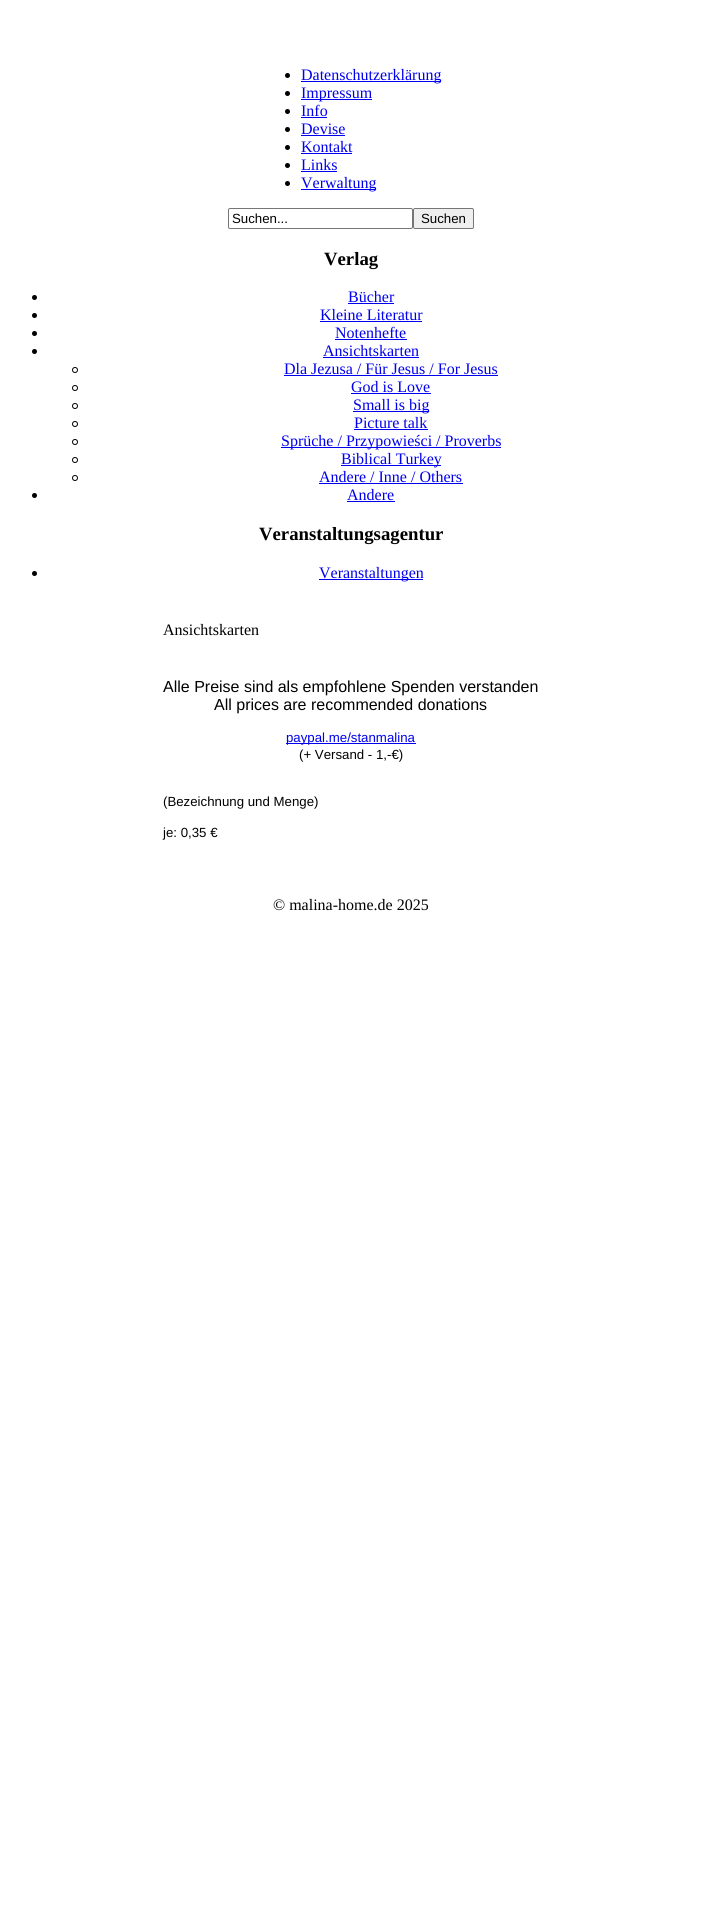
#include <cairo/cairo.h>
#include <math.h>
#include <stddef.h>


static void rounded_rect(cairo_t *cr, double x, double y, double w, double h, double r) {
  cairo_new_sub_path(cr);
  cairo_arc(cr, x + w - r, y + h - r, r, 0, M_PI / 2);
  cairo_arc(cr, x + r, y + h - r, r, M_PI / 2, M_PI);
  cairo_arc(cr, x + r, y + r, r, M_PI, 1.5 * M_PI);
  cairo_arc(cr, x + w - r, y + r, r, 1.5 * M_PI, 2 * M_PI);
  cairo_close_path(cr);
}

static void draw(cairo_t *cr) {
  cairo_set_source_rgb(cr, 1, 1, 1);
  cairo_paint(cr);
  cairo_set_source_rgb(cr, 0, 0, 0);
  cairo_arc(cr, 287.5, 75.5, 2.5, 0, 2 * M_PI);
  cairo_fill(cr);
  cairo_set_source_rgb(cr, 0, 0, 238 / 255.0);
  cairo_rectangle(cr, 301, 81, 140, 1);
  cairo_fill(cr);
  cairo_set_source_rgb(cr, 0, 0, 0);
  cairo_arc(cr, 287.5, 93.5, 2.5, 0, 2 * M_PI);
  cairo_fill(cr);
  cairo_set_source_rgb(cr, 0, 0, 238 / 255.0);
  cairo_rectangle(cr, 301, 99, 71, 1);
  cairo_fill(cr);
  cairo_set_source_rgb(cr, 0, 0, 0);
  cairo_arc(cr, 287.5, 111.5, 2.5, 0, 2 * M_PI);
  cairo_fill(cr);
  cairo_set_source_rgb(cr, 0, 0, 238 / 255.0);
  cairo_rectangle(cr, 301, 117, 26, 1);
  cairo_fill(cr);
  cairo_set_source_rgb(cr, 0, 0, 0);
  cairo_arc(cr, 287.5, 129.5, 2.5, 0, 2 * M_PI);
  cairo_fill(cr);
  cairo_set_source_rgb(cr, 0, 0, 238 / 255.0);
  cairo_rectangle(cr, 301, 135, 44, 1);
  cairo_fill(cr);
  cairo_set_source_rgb(cr, 0, 0, 0);
  cairo_arc(cr, 287.5, 147.5, 2.5, 0, 2 * M_PI);
  cairo_fill(cr);
  cairo_set_source_rgb(cr, 0, 0, 238 / 255.0);
  cairo_rectangle(cr, 301, 153, 51, 1);
  cairo_fill(cr);
  cairo_set_source_rgb(cr, 0, 0, 0);
  cairo_arc(cr, 287.5, 165.5, 2.5, 0, 2 * M_PI);
  cairo_fill(cr);
  cairo_set_source_rgb(cr, 0, 0, 238 / 255.0);
  cairo_rectangle(cr, 301, 171, 36, 1);
  cairo_fill(cr);
  cairo_set_source_rgb(cr, 0, 0, 0);
  cairo_arc(cr, 287.5, 183.5, 2.5, 0, 2 * M_PI);
  cairo_fill(cr);
  cairo_set_source_rgb(cr, 0, 0, 238 / 255.0);
  cairo_rectangle(cr, 301, 189, 75, 1);
  cairo_fill(cr);
  rounded_rect(cr, 228.5, 208.5, 184, 20, 1.5);
  cairo_set_source_rgb(cr, 118 / 255.0, 118 / 255.0, 118 / 255.0);
  cairo_set_line_width(cr, 1);
  cairo_stroke(cr);
  cairo_set_source_rgb(cr, 239 / 255.0, 239 / 255.0, 239 / 255.0);
  rounded_rect(cr, 413.5, 208.5, 60, 20, 1.5);
  cairo_fill_preserve(cr);
  cairo_set_source_rgb(cr, 118 / 255.0, 118 / 255.0, 118 / 255.0);
  cairo_stroke(cr);
  cairo_set_source_rgb(cr, 0, 0, 0);
  cairo_arc(cr, 34.5, 297.5, 2.5, 0, 2 * M_PI);
  cairo_fill(cr);
  cairo_set_source_rgb(cr, 0, 0, 238 / 255.0);
  cairo_rectangle(cr, 348, 303, 46, 1);
  cairo_fill(cr);
  cairo_set_source_rgb(cr, 0, 0, 0);
  cairo_arc(cr, 34.5, 315.5, 2.5, 0, 2 * M_PI);
  cairo_fill(cr);
  cairo_set_source_rgb(cr, 0, 0, 238 / 255.0);
  cairo_rectangle(cr, 320, 321, 102, 1);
  cairo_fill(cr);
  cairo_set_source_rgb(cr, 0, 0, 0);
  cairo_arc(cr, 34.5, 333.5, 2.5, 0, 2 * M_PI);
  cairo_fill(cr);
  cairo_set_source_rgb(cr, 0, 0, 238 / 255.0);
  cairo_rectangle(cr, 335, 339, 72, 1);
  cairo_fill(cr);
  cairo_set_source_rgb(cr, 0, 0, 0);
  cairo_arc(cr, 34.5, 351.5, 2.5, 0, 2 * M_PI);
  cairo_fill(cr);
  cairo_set_source_rgb(cr, 0, 0, 238 / 255.0);
  cairo_rectangle(cr, 323, 357, 96, 1);
  cairo_fill(cr);
  cairo_arc(cr, 75, 370, 2.5, 0, 2 * M_PI);
  cairo_set_source_rgb(cr, 0, 0, 0);
  cairo_stroke(cr);
  cairo_set_source_rgb(cr, 0, 0, 238 / 255.0);
  cairo_rectangle(cr, 284, 375, 214, 1);
  cairo_fill(cr);
  cairo_arc(cr, 75, 388, 2.5, 0, 2 * M_PI);
  cairo_set_source_rgb(cr, 0, 0, 0);
  cairo_stroke(cr);
  cairo_set_source_rgb(cr, 0, 0, 238 / 255.0);
  cairo_rectangle(cr, 351, 393, 80, 1);
  cairo_fill(cr);
  cairo_arc(cr, 75, 406, 2.5, 0, 2 * M_PI);
  cairo_set_source_rgb(cr, 0, 0, 0);
  cairo_stroke(cr);
  cairo_set_source_rgb(cr, 0, 0, 238 / 255.0);
  cairo_rectangle(cr, 353, 411, 76, 1);
  cairo_fill(cr);
  cairo_arc(cr, 75, 424, 2.5, 0, 2 * M_PI);
  cairo_set_source_rgb(cr, 0, 0, 0);
  cairo_stroke(cr);
  cairo_set_source_rgb(cr, 0, 0, 238 / 255.0);
  cairo_rectangle(cr, 354, 429, 74, 1);
  cairo_fill(cr);
  cairo_arc(cr, 75, 442, 2.5, 0, 2 * M_PI);
  cairo_set_source_rgb(cr, 0, 0, 0);
  cairo_stroke(cr);
  cairo_set_source_rgb(cr, 0, 0, 238 / 255.0);
  cairo_rectangle(cr, 281, 447, 220, 1);
  cairo_fill(cr);
  cairo_arc(cr, 75, 460, 2.5, 0, 2 * M_PI);
  cairo_set_source_rgb(cr, 0, 0, 0);
  cairo_stroke(cr);
  cairo_set_source_rgb(cr, 0, 0, 238 / 255.0);
  cairo_rectangle(cr, 341, 465, 100, 1);
  cairo_fill(cr);
  cairo_arc(cr, 75, 478, 2.5, 0, 2 * M_PI);
  cairo_set_source_rgb(cr, 0, 0, 0);
  cairo_stroke(cr);
  cairo_set_source_rgb(cr, 0, 0, 238 / 255.0);
  cairo_rectangle(cr, 319, 483, 144, 1);
  cairo_fill(cr);
  cairo_set_source_rgb(cr, 0, 0, 0);
  cairo_arc(cr, 34.5, 495.5, 2.5, 0, 2 * M_PI);
  cairo_fill(cr);
  cairo_set_source_rgb(cr, 0, 0, 238 / 255.0);
  cairo_rectangle(cr, 347, 501, 48, 1);
  cairo_fill(cr);
  cairo_set_source_rgb(cr, 0, 0, 0);
  cairo_arc(cr, 34.5, 573.5, 2.5, 0, 2 * M_PI);
  cairo_fill(cr);
  cairo_set_source_rgb(cr, 0, 0, 238 / 255.0);
  cairo_rectangle(cr, 319, 579, 104, 1);
  cairo_fill(cr);
  cairo_rectangle(cr, 286, 743, 130, 1);
  cairo_fill(cr);
  cairo_select_font_face(cr, "Liberation Serif", CAIRO_FONT_SLANT_NORMAL, CAIRO_FONT_WEIGHT_NORMAL);
  cairo_set_font_size(cr, 16);
  cairo_move_to(cr, 301, 80);
  cairo_show_text(cr, "Datenschutzerklärung");
  cairo_move_to(cr, 301, 98);
  cairo_show_text(cr, "Impressum");
  cairo_move_to(cr, 301, 116);
  cairo_show_text(cr, "Info");
  cairo_move_to(cr, 301, 134);
  cairo_show_text(cr, "Devise");
  cairo_move_to(cr, 301, 152);
  cairo_show_text(cr, "Kontakt");
  cairo_move_to(cr, 301, 170);
  cairo_show_text(cr, "Links");
  cairo_move_to(cr, 301, 188);
  cairo_show_text(cr, "Verwaltung");
  cairo_select_font_face(cr, "Liberation Sans", CAIRO_FONT_SLANT_NORMAL, CAIRO_FONT_WEIGHT_NORMAL);
  cairo_set_font_size(cr, 13.25);
  cairo_set_source_rgb(cr, 0, 0, 0);
  cairo_move_to(cr, 232, 223);
  cairo_show_text(cr, "Suchen...");
  cairo_move_to(cr, 421, 223);
  cairo_show_text(cr, "Suchen");
  cairo_select_font_face(cr, "Liberation Serif", CAIRO_FONT_SLANT_NORMAL, CAIRO_FONT_WEIGHT_BOLD);
  cairo_set_font_size(cr, 18.75);
  cairo_move_to(cr, 324, 265);
  cairo_show_text(cr, "Verlag");
  cairo_select_font_face(cr, "Liberation Serif", CAIRO_FONT_SLANT_NORMAL, CAIRO_FONT_WEIGHT_NORMAL);
  cairo_set_font_size(cr, 16);
  cairo_set_source_rgb(cr, 0, 0, 238 / 255.0);
  cairo_move_to(cr, 348, 302);
  cairo_show_text(cr, "Bücher");
  cairo_move_to(cr, 320, 320);
  cairo_show_text(cr, "Kleine Literatur");
  cairo_move_to(cr, 335, 338);
  cairo_show_text(cr, "Notenhefte");
  cairo_move_to(cr, 323, 356);
  cairo_show_text(cr, "Ansichtskarten");
  cairo_move_to(cr, 284, 374);
  cairo_show_text(cr, "Dla Jezusa / Für Jesus / For Jesus");
  cairo_move_to(cr, 351, 392);
  cairo_show_text(cr, "God is Love");
  cairo_move_to(cr, 353, 410);
  cairo_show_text(cr, "Small is big");
  cairo_move_to(cr, 354, 428);
  cairo_show_text(cr, "Picture talk");
  cairo_move_to(cr, 281, 446);
  cairo_show_text(cr, "Sprüche / Przypowieści / Proverbs");
  cairo_move_to(cr, 341, 464);
  cairo_show_text(cr, "Biblical Turkey");
  cairo_move_to(cr, 319, 482);
  cairo_show_text(cr, "Andere / Inne / Others");
  cairo_move_to(cr, 347, 500);
  cairo_show_text(cr, "Andere");
  cairo_select_font_face(cr, "Liberation Serif", CAIRO_FONT_SLANT_NORMAL, CAIRO_FONT_WEIGHT_BOLD);
  cairo_set_font_size(cr, 18.75);
  cairo_set_source_rgb(cr, 0, 0, 0);
  cairo_move_to(cr, 259, 540);
  cairo_show_text(cr, "Veranstaltungsagentur");
  cairo_select_font_face(cr, "Liberation Serif", CAIRO_FONT_SLANT_NORMAL, CAIRO_FONT_WEIGHT_NORMAL);
  cairo_set_font_size(cr, 16);
  cairo_set_source_rgb(cr, 0, 0, 238 / 255.0);
  cairo_move_to(cr, 319, 578);
  cairo_show_text(cr, "Veranstaltungen");
  cairo_set_source_rgb(cr, 0, 0, 0);
  cairo_move_to(cr, 163, 635);
  cairo_show_text(cr, "Ansichtskarten");
  cairo_select_font_face(cr, "Liberation Sans", CAIRO_FONT_SLANT_NORMAL, CAIRO_FONT_WEIGHT_NORMAL);
  cairo_move_to(cr, 163, 692);
  cairo_show_text(cr, "Alle Preise sind als empfohlene Spenden verstanden");
  cairo_move_to(cr, 214, 710);
  cairo_show_text(cr, "All prices are recommended donations");
  cairo_set_font_size(cr, 13.25);
  cairo_set_source_rgb(cr, 0, 0, 238 / 255.0);
  cairo_move_to(cr, 286, 742);
  cairo_show_text(cr, "paypal.me/stanmalina");
  cairo_set_source_rgb(cr, 0, 0, 0);
  cairo_move_to(cr, 299, 759);
  cairo_show_text(cr, "(+ Versand - 1,-€)");
  cairo_move_to(cr, 163, 806);
  cairo_show_text(cr, "(Bezeichnung und Menge)");
  cairo_move_to(cr, 163, 837);
  cairo_show_text(cr, "je: 0,35 €");
  cairo_select_font_face(cr, "Liberation Serif", CAIRO_FONT_SLANT_NORMAL, CAIRO_FONT_WEIGHT_NORMAL);
  cairo_set_font_size(cr, 16);
  cairo_move_to(cr, 273, 910);
  cairo_show_text(cr, "© malina-home.de 2025");
}

int main(void) {
  cairo_surface_t *surface = cairo_image_surface_create(CAIRO_FORMAT_RGB24, 702, 1919);
  cairo_t *cr = cairo_create(surface);
  cairo_font_options_t *options = cairo_font_options_create();
  cairo_font_options_set_hint_metrics(options, CAIRO_HINT_METRICS_OFF);
  cairo_font_options_set_hint_style(options, CAIRO_HINT_STYLE_NONE);
  cairo_set_font_options(cr, options);
  cairo_set_miter_limit(cr, 4);
  draw(cr);
  cairo_surface_write_to_png(surface, "out.png");
  cairo_font_options_destroy(options);
  cairo_destroy(cr);
  cairo_surface_destroy(surface);
  return 0;
}
